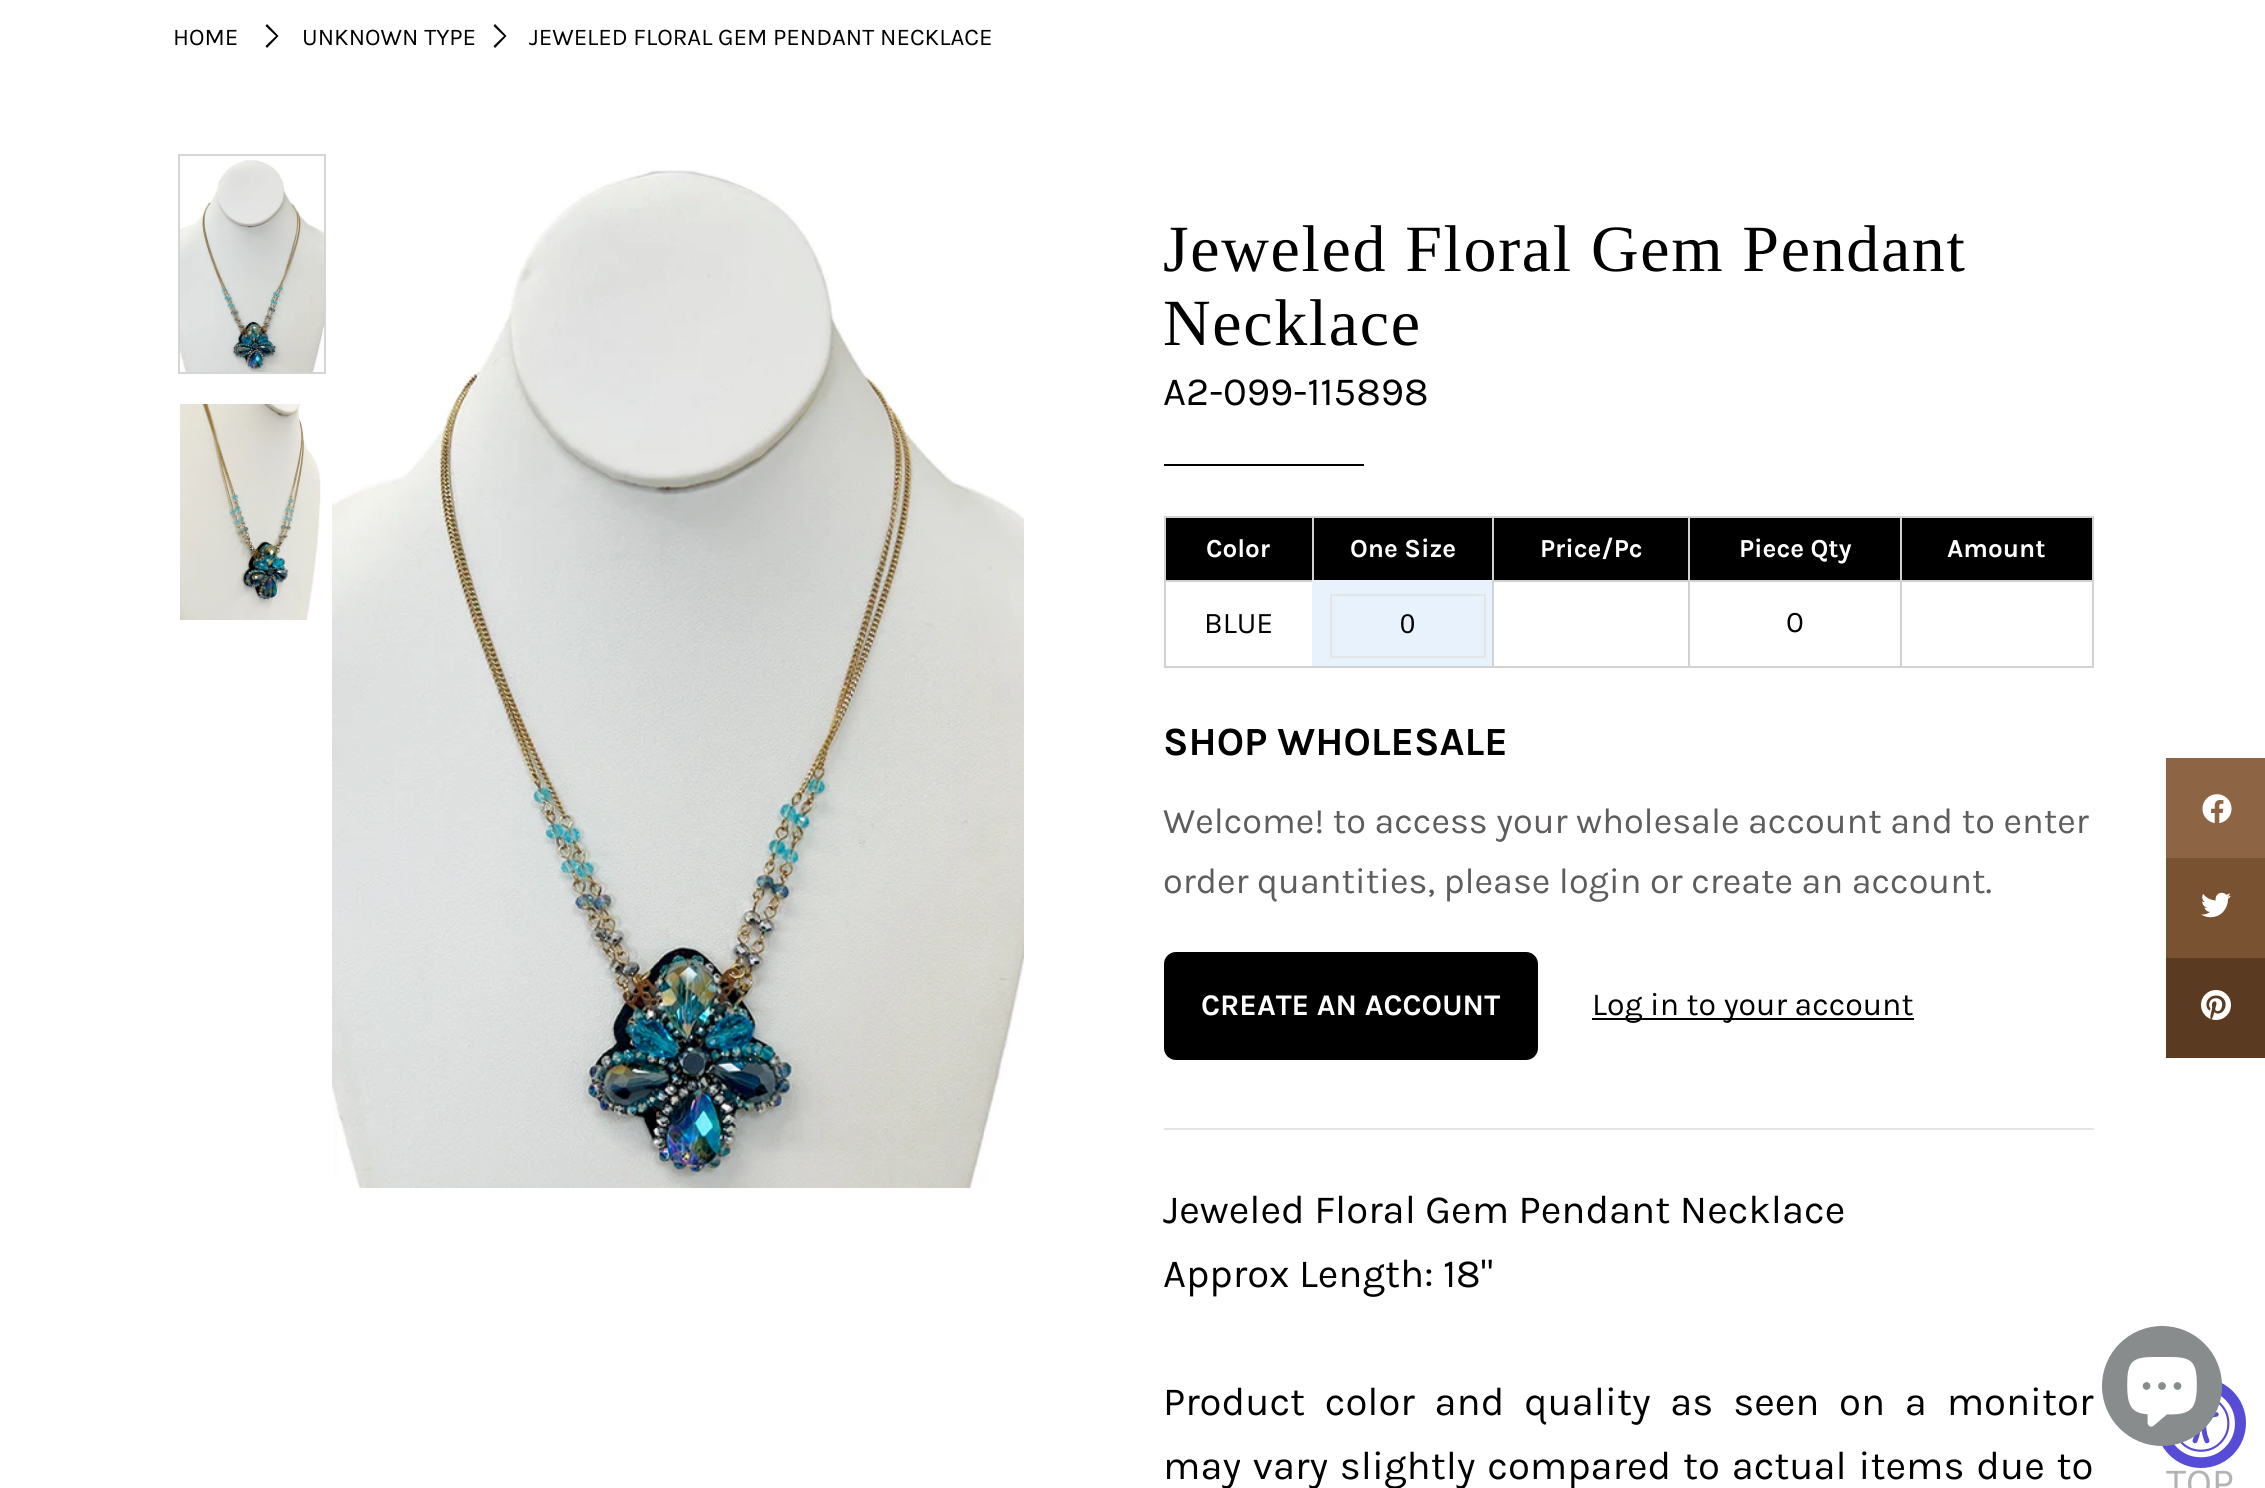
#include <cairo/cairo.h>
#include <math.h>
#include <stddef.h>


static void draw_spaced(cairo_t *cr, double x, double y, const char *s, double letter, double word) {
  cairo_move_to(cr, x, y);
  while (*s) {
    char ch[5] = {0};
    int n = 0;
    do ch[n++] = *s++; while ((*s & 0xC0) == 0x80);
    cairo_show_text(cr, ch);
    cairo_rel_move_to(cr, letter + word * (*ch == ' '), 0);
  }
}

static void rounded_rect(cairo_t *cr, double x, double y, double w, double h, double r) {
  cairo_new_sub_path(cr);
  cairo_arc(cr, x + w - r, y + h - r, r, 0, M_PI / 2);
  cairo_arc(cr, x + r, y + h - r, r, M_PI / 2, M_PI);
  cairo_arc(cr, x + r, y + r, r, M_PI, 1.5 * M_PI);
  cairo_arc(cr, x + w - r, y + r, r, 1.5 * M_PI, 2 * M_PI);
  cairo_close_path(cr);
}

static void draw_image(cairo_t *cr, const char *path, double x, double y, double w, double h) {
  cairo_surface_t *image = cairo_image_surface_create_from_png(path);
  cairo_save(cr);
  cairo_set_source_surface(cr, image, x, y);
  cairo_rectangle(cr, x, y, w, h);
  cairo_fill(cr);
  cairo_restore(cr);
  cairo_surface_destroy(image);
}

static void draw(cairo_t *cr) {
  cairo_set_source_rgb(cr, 1, 1, 1);
  cairo_paint(cr);
  cairo_set_source_rgb(cr, 0, 0, 0);
  cairo_new_path(cr);
  cairo_move_to(cr, 267, 24);
  cairo_line_to(cr, 278.5, 36);
  cairo_line_to(cr, 267, 48);
  cairo_line_to(cr, 265.5, 46);
  cairo_line_to(cr, 276, 36);
  cairo_line_to(cr, 265.5, 26);
  cairo_close_path(cr);
  cairo_fill(cr);
  cairo_new_path(cr);
  cairo_move_to(cr, 495, 24);
  cairo_line_to(cr, 506.5, 36);
  cairo_line_to(cr, 495, 48);
  cairo_line_to(cr, 493.5, 46);
  cairo_line_to(cr, 504, 36);
  cairo_line_to(cr, 493.5, 26);
  cairo_close_path(cr);
  cairo_fill(cr);
  cairo_rectangle(cr, 179, 155, 146, 218);
  cairo_set_source_rgb(cr, 213 / 255.0, 213 / 255.0, 213 / 255.0);
  cairo_stroke(cr);
  draw_image(cr, "images/1.png", 180, 160, 144, 212);
  draw_image(cr, "images/2.png", 180, 404, 141, 216);
  draw_image(cr, "images/3.png", 332, 170, 692, 1018);
  cairo_set_source_rgb(cr, 0, 0, 0);
  cairo_rectangle(cr, 1164, 464, 200, 2);
  cairo_fill(cr);
  cairo_set_source_rgb(cr, 229 / 255.0, 229 / 255.0, 229 / 255.0);
  cairo_rectangle(cr, 1164, 1128, 930, 2);
  cairo_fill(cr);
  cairo_set_source_rgb(cr, 0, 0, 0);
  cairo_rectangle(cr, 1166, 518, 146, 62);
  cairo_fill(cr);
  cairo_set_source_rgb(cr, 209 / 255.0, 209 / 255.0, 209 / 255.0);
  cairo_rectangle(cr, 1900, 516, 194, 2);
  cairo_fill(cr);
  cairo_rectangle(cr, 1900, 580, 194, 2);
  cairo_fill(cr);
  cairo_rectangle(cr, 2092, 580, 2, 88);
  cairo_fill(cr);
  cairo_rectangle(cr, 1900, 666, 194, 2);
  cairo_fill(cr);
  cairo_rectangle(cr, 1900, 580, 2, 88);
  cairo_fill(cr);
  cairo_rectangle(cr, 1688, 580, 214, 2);
  cairo_fill(cr);
  cairo_rectangle(cr, 1900, 516, 2, 66);
  cairo_fill(cr);
  cairo_rectangle(cr, 1688, 516, 214, 2);
  cairo_fill(cr);
  cairo_rectangle(cr, 1688, 666, 214, 2);
  cairo_fill(cr);
  cairo_rectangle(cr, 1688, 580, 2, 88);
  cairo_fill(cr);
  cairo_rectangle(cr, 1492, 580, 198, 2);
  cairo_fill(cr);
  cairo_rectangle(cr, 1688, 516, 2, 66);
  cairo_fill(cr);
  cairo_rectangle(cr, 1492, 516, 198, 2);
  cairo_fill(cr);
  cairo_rectangle(cr, 1492, 666, 198, 2);
  cairo_fill(cr);
  cairo_rectangle(cr, 1492, 580, 2, 88);
  cairo_fill(cr);
  cairo_rectangle(cr, 1492, 516, 2, 66);
  cairo_fill(cr);
  cairo_rectangle(cr, 1312, 516, 182, 2);
  cairo_fill(cr);
  cairo_rectangle(cr, 1164, 580, 150, 2);
  cairo_fill(cr);
  cairo_rectangle(cr, 1312, 516, 2, 66);
  cairo_fill(cr);
  cairo_rectangle(cr, 1164, 516, 150, 2);
  cairo_fill(cr);
  cairo_rectangle(cr, 1164, 666, 330, 2);
  cairo_fill(cr);
  cairo_rectangle(cr, 1164, 580, 2, 88);
  cairo_fill(cr);
  cairo_rectangle(cr, 1164, 516, 2, 66);
  cairo_fill(cr);
  cairo_set_source_rgb(cr, 0, 0, 0);
  cairo_rectangle(cr, 1314, 518, 178, 62);
  cairo_fill(cr);
  cairo_rectangle(cr, 1494, 518, 194, 62);
  cairo_fill(cr);
  cairo_rectangle(cr, 1690, 518, 210, 62);
  cairo_fill(cr);
  cairo_rectangle(cr, 1902, 518, 190, 62);
  cairo_fill(cr);
  cairo_set_source_rgb(cr, 209 / 255.0, 209 / 255.0, 209 / 255.0);
  cairo_rectangle(cr, 2092, 516, 2, 66);
  cairo_fill(cr);
  cairo_set_source_rgb(cr, 232 / 255.0, 242 / 255.0, 253 / 255.0);
  cairo_rectangle(cr, 1312, 580, 180, 86);
  cairo_fill(cr);
  cairo_rectangle(cr, 1331, 595, 154, 62);
  cairo_set_source_rgb(cr, 229 / 255.0, 229 / 255.0, 229 / 255.0);
  cairo_stroke(cr);
  cairo_set_source_rgb(cr, 0, 0, 0);
  rounded_rect(cr, 1164, 952, 374, 108, 12);
  cairo_fill(cr);
  cairo_rectangle(cr, 1592, 1018, 322, 2);
  cairo_fill(cr);
  cairo_set_source_rgb(cr, 141 / 255.0, 101 / 255.0, 68 / 255.0);
  cairo_rectangle(cr, 2166, 758, 99, 100);
  cairo_fill(cr);
  draw_image(cr, "images/4.png", 2202, 794, 30, 29);
  cairo_set_source_rgb(cr, 121 / 255.0, 82 / 255.0, 50 / 255.0);
  cairo_rectangle(cr, 2166, 858, 99, 100);
  cairo_fill(cr);
  draw_image(cr, "images/5.png", 2201, 892, 30, 26);
  cairo_set_source_rgb(cr, 90 / 255.0, 59 / 255.0, 33 / 255.0);
  cairo_rectangle(cr, 2166, 958, 99, 100);
  cairo_fill(cr);
  draw_image(cr, "images/6.png", 2201, 990, 30, 30);
  cairo_set_source_rgb(cr, 87 / 255.0, 76 / 255.0, 213 / 255.0);
  cairo_arc(cr, 2201, 1423, 45, 0, 2 * M_PI);
  cairo_fill(cr);
  draw_image(cr, "images/8.png", 2174, 1396, 61, 62);
  cairo_set_source_rgb(cr, 136 / 255.0, 140 / 255.0, 141 / 255.0);
  cairo_arc(cr, 2162, 1386, 60, 0, 2 * M_PI);
  cairo_fill(cr);
  draw_image(cr, "images/7.png", 2127, 1357, 70, 70);
  cairo_select_font_face(cr, "Karla", CAIRO_FONT_SLANT_NORMAL, CAIRO_FONT_WEIGHT_NORMAL);
  cairo_set_font_size(cr, 24);
  cairo_set_source_rgb(cr, 0, 0, 0);
  cairo_move_to(cr, 173, 45);
  cairo_show_text(cr, "HOME");
  cairo_move_to(cr, 302, 45);
  cairo_show_text(cr, "UNKNOWN TYPE");
  cairo_move_to(cr, 529, 45);
  cairo_show_text(cr, "JEWELED FLORAL GEM PENDANT NECKLACE");
  cairo_select_font_face(cr, "Liberation Serif", CAIRO_FONT_SLANT_NORMAL, CAIRO_FONT_WEIGHT_NORMAL);
  cairo_set_font_size(cr, 66);
  draw_spaced(cr, 1163, 271, "Jeweled Floral Gem Pendant", 1.65, 0);
  draw_spaced(cr, 1163, 345, "Necklace", 1.65, 0);
  cairo_select_font_face(cr, "Karla", CAIRO_FONT_SLANT_NORMAL, CAIRO_FONT_WEIGHT_NORMAL);
  cairo_set_font_size(cr, 40);
  cairo_move_to(cr, 1163, 405);
  cairo_show_text(cr, "A2-099-115898");
  cairo_select_font_face(cr, "Karla", CAIRO_FONT_SLANT_NORMAL, CAIRO_FONT_WEIGHT_BOLD);
  cairo_set_font_size(cr, 26);
  cairo_set_source_rgb(cr, 1, 1, 1);
  cairo_move_to(cr, 1206, 557);
  cairo_show_text(cr, "Color");
  cairo_move_to(cr, 1350, 557);
  cairo_show_text(cr, "One Size");
  cairo_move_to(cr, 1540, 557);
  cairo_show_text(cr, "Price/Pc");
  cairo_move_to(cr, 1739, 557);
  cairo_show_text(cr, "Piece Qty");
  cairo_move_to(cr, 1947, 557);
  cairo_show_text(cr, "Amount");
  cairo_select_font_face(cr, "Karla", CAIRO_FONT_SLANT_NORMAL, CAIRO_FONT_WEIGHT_NORMAL);
  cairo_set_font_size(cr, 30);
  cairo_set_source_rgb(cr, 0, 0, 0);
  cairo_move_to(cr, 1204, 633);
  cairo_show_text(cr, "BLUE");
  cairo_select_font_face(cr, "Liberation Sans", CAIRO_FONT_SLANT_NORMAL, CAIRO_FONT_WEIGHT_NORMAL);
  cairo_set_font_size(cr, 27);
  cairo_move_to(cr, 1400, 633);
  cairo_show_text(cr, "0");
  cairo_select_font_face(cr, "Karla", CAIRO_FONT_SLANT_NORMAL, CAIRO_FONT_WEIGHT_NORMAL);
  cairo_set_font_size(cr, 30);
  cairo_move_to(cr, 1786, 632);
  cairo_show_text(cr, "0");
  cairo_select_font_face(cr, "Karla", CAIRO_FONT_SLANT_NORMAL, CAIRO_FONT_WEIGHT_BOLD);
  cairo_set_font_size(cr, 40);
  cairo_move_to(cr, 1163, 755);
  cairo_show_text(cr, "SHOP WHOLESALE");
  cairo_select_font_face(cr, "Karla", CAIRO_FONT_SLANT_NORMAL, CAIRO_FONT_WEIGHT_NORMAL);
  cairo_set_font_size(cr, 36);
  cairo_set_source_rgb(cr, 94 / 255.0, 92 / 255.0, 92 / 255.0);
  cairo_move_to(cr, 1163, 833);
  cairo_show_text(cr, "Welcome! to access your wholesale account and to enter");
  cairo_move_to(cr, 1163, 893);
  cairo_show_text(cr, "order quantities, please login or create an account.");
  cairo_select_font_face(cr, "Karla", CAIRO_FONT_SLANT_NORMAL, CAIRO_FONT_WEIGHT_BOLD);
  cairo_set_font_size(cr, 30);
  cairo_set_source_rgb(cr, 1, 1, 1);
  cairo_move_to(cr, 1201, 1015);
  cairo_show_text(cr, "CREATE AN ACCOUNT");
  cairo_select_font_face(cr, "Karla", CAIRO_FONT_SLANT_NORMAL, CAIRO_FONT_WEIGHT_NORMAL);
  cairo_set_font_size(cr, 32);
  cairo_set_source_rgb(cr, 0, 0, 0);
  cairo_move_to(cr, 1592, 1015);
  cairo_show_text(cr, "Log in to your account");
  cairo_set_font_size(cr, 40);
  cairo_move_to(cr, 1163, 1223);
  cairo_show_text(cr, "Jeweled Floral Gem Pendant Necklace");
  cairo_move_to(cr, 1163, 1287);
  cairo_show_text(cr, "Approx Length: 18\"");
  draw_spaced(cr, 1163, 1415, "Product color and quality as seen on a monitor", 0, 10.25);
  draw_spaced(cr, 1163, 1479, "may vary slightly compared to actual items due to", 0, 2.25);
  cairo_set_source_rgb(cr, 179 / 255.0, 179 / 255.0, 179 / 255.0);
  cairo_move_to(cr, 2166, 1496);
  cairo_show_text(cr, "TOP");
}

int main(void) {
  cairo_surface_t *surface = cairo_image_surface_create(CAIRO_FORMAT_RGB24, 2265, 1488);
  cairo_t *cr = cairo_create(surface);
  cairo_font_options_t *options = cairo_font_options_create();
  cairo_font_options_set_hint_metrics(options, CAIRO_HINT_METRICS_OFF);
  cairo_font_options_set_hint_style(options, CAIRO_HINT_STYLE_NONE);
  cairo_set_font_options(cr, options);
  cairo_set_miter_limit(cr, 4);
  draw(cr);
  cairo_surface_write_to_png(surface, "out.png");
  cairo_font_options_destroy(options);
  cairo_destroy(cr);
  cairo_surface_destroy(surface);
  return 0;
}
